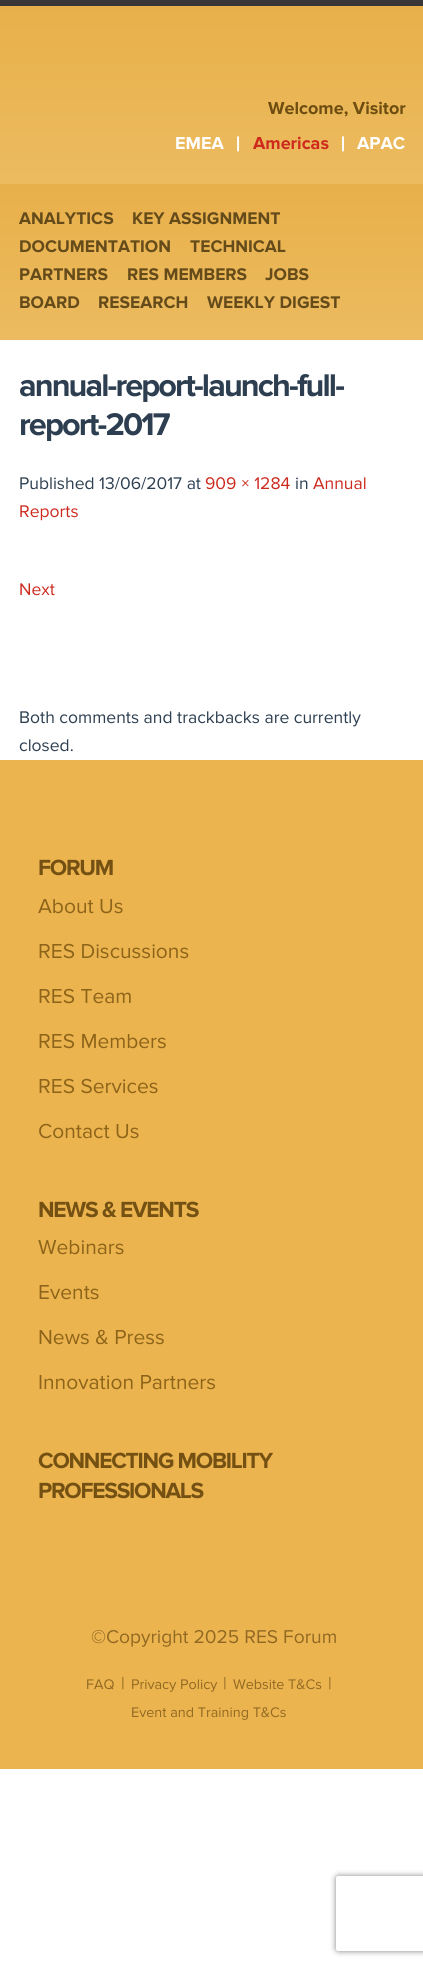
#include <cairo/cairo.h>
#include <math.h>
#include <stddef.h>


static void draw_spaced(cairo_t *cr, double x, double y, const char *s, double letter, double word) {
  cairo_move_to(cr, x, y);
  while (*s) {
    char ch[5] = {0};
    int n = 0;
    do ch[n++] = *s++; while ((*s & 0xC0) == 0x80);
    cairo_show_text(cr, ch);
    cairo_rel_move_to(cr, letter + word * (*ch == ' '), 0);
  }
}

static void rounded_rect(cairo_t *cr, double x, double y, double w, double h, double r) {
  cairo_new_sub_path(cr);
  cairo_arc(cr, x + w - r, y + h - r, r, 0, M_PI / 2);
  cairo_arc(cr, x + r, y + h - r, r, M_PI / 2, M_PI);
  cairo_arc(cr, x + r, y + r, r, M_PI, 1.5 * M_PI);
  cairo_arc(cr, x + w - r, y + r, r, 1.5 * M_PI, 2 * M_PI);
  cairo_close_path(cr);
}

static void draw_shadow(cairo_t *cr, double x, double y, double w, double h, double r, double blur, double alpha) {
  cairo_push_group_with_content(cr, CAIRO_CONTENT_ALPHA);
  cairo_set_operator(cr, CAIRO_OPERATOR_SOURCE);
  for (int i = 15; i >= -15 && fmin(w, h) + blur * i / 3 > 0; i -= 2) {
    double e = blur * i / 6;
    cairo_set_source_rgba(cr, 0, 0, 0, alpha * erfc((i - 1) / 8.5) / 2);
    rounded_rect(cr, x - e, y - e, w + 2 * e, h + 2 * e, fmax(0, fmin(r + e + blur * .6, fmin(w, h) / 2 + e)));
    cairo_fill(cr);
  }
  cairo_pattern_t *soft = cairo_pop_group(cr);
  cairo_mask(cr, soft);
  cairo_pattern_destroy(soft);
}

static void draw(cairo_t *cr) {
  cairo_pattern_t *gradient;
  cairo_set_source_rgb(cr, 1, 1, 1);
  cairo_paint(cr);
  gradient = cairo_pattern_create_linear(212, 6.2, 212, 184);
  cairo_pattern_add_color_stop_rgba(gradient, 0, 232 / 255.0, 176 / 255.0, 74 / 255.0, 1);
  cairo_pattern_add_color_stop_rgba(gradient, 1, 236 / 255.0, 187 / 255.0, 96 / 255.0, 1);
  cairo_set_source(cr, gradient);
  cairo_pattern_destroy(gradient);
  cairo_rectangle(cr, 0, 6, 423, 178);
  cairo_fill(cr);
  cairo_set_source_rgb(cr, 57 / 255.0, 55 / 255.0, 55 / 255.0);
  cairo_rectangle(cr, 0, 0, 423, 6);
  cairo_fill(cr);
  gradient = cairo_pattern_create_linear(212, 184, 212, 340);
  cairo_pattern_add_color_stop_rgba(gradient, 0, 232 / 255.0, 176 / 255.0, 74 / 255.0, 1);
  cairo_pattern_add_color_stop_rgba(gradient, 1, 236 / 255.0, 187 / 255.0, 96 / 255.0, 1);
  cairo_set_source(cr, gradient);
  cairo_pattern_destroy(gradient);
  cairo_rectangle(cr, 0, 184, 423, 156);
  cairo_fill(cr);
  cairo_set_source_rgb(cr, 236 / 255.0, 180 / 255.0, 79 / 255.0);
  cairo_rectangle(cr, 0, 760, 423, 1009);
  cairo_fill(cr);
  cairo_save(cr);
  cairo_set_fill_rule(cr, CAIRO_FILL_RULE_EVEN_ODD);
  cairo_new_path(cr);
  cairo_move_to(cr, 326, 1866);
  cairo_line_to(cr, 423, 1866);
  cairo_line_to(cr, 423, 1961);
  cairo_line_to(cr, 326, 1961);
  cairo_close_path(cr);
  cairo_move_to(cr, 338.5, 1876);
  cairo_line_to(cr, 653.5, 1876);
  cairo_curve_to(cr, 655, 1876, 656, 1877, 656, 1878.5);
  cairo_line_to(cr, 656, 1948.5);
  cairo_curve_to(cr, 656, 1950, 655, 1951, 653.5, 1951);
  cairo_line_to(cr, 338.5, 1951);
  cairo_curve_to(cr, 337, 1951, 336, 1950, 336, 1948.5);
  cairo_line_to(cr, 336, 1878.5);
  cairo_curve_to(cr, 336, 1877, 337, 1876, 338.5, 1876);
  cairo_close_path(cr);
  cairo_clip(cr);
  cairo_set_source_rgb(cr, 128 / 255.0, 128 / 255.0, 128 / 255.0);
  draw_shadow(cr, 336, 1876, 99, 75, 2.5, 3, 1);
  cairo_restore(cr);
  cairo_select_font_face(cr, "Proxima Nova", CAIRO_FONT_SLANT_NORMAL, CAIRO_FONT_WEIGHT_BOLD);
  cairo_set_font_size(cr, 18);
  cairo_set_source_rgb(cr, 110 / 255.0, 77 / 255.0, 16 / 255.0);
  cairo_move_to(cr, 268, 114);
  cairo_show_text(cr, "Welcome, Visitor");
  cairo_set_source_rgb(cr, 1, 1, 1);
  cairo_move_to(cr, 175, 149);
  cairo_show_text(cr, "EMEA");
  cairo_select_font_face(cr, "PT Sans", CAIRO_FONT_SLANT_NORMAL, CAIRO_FONT_WEIGHT_BOLD);
  cairo_move_to(cr, 236, 149);
  cairo_show_text(cr, "|");
  cairo_select_font_face(cr, "Proxima Nova", CAIRO_FONT_SLANT_NORMAL, CAIRO_FONT_WEIGHT_BOLD);
  cairo_set_source_rgb(cr, 205 / 255.0, 41 / 255.0, 29 / 255.0);
  cairo_move_to(cr, 253, 149);
  cairo_show_text(cr, "Americas");
  cairo_select_font_face(cr, "PT Sans", CAIRO_FONT_SLANT_NORMAL, CAIRO_FONT_WEIGHT_BOLD);
  cairo_set_source_rgb(cr, 1, 1, 1);
  cairo_move_to(cr, 341, 149);
  cairo_show_text(cr, "|");
  cairo_select_font_face(cr, "Proxima Nova", CAIRO_FONT_SLANT_NORMAL, CAIRO_FONT_WEIGHT_BOLD);
  cairo_move_to(cr, 357, 149);
  cairo_show_text(cr, "APAC");
  cairo_set_font_size(cr, 17.5);
  cairo_set_source_rgb(cr, 101 / 255.0, 75 / 255.0, 26 / 255.0);
  cairo_move_to(cr, 19, 224);
  cairo_show_text(cr, "ANALYTICS");
  cairo_move_to(cr, 132, 224);
  cairo_show_text(cr, "KEY ASSIGNMENT");
  cairo_move_to(cr, 19, 252);
  cairo_show_text(cr, "DOCUMENTATION");
  cairo_move_to(cr, 190, 252);
  cairo_show_text(cr, "TECHNICAL");
  cairo_move_to(cr, 19, 280);
  cairo_show_text(cr, "PARTNERS");
  cairo_move_to(cr, 127, 280);
  cairo_show_text(cr, "RES MEMBERS");
  cairo_move_to(cr, 265, 280);
  cairo_show_text(cr, "JOBS");
  cairo_move_to(cr, 19, 308);
  cairo_show_text(cr, "BOARD");
  cairo_move_to(cr, 98, 308);
  cairo_show_text(cr, "RESEARCH");
  cairo_move_to(cr, 207, 308);
  cairo_show_text(cr, "WEEKLY DIGEST");
  cairo_set_font_size(cr, 32.5);
  cairo_set_source_rgb(cr, 44 / 255.0, 62 / 255.0, 80 / 255.0);
  draw_spaced(cr, 19, 396, "annual-report-launch-full-", -1.9, 0);
  draw_spaced(cr, 19, 435, "report-2017", -1.9, 0);
  cairo_select_font_face(cr, "Proxima Nova", CAIRO_FONT_SLANT_NORMAL, CAIRO_FONT_WEIGHT_NORMAL);
  cairo_set_font_size(cr, 17.5);
  cairo_move_to(cr, 19, 489);
  cairo_show_text(cr, "Published 13/06/2017 at");
  cairo_set_source_rgb(cr, 205 / 255.0, 41 / 255.0, 29 / 255.0);
  cairo_move_to(cr, 205, 489);
  cairo_show_text(cr, "909 × 1284");
  cairo_set_source_rgb(cr, 44 / 255.0, 62 / 255.0, 80 / 255.0);
  cairo_move_to(cr, 295, 489);
  cairo_show_text(cr, "in");
  cairo_set_source_rgb(cr, 205 / 255.0, 41 / 255.0, 29 / 255.0);
  cairo_move_to(cr, 313, 489);
  cairo_show_text(cr, "Annual");
  cairo_move_to(cr, 19, 517);
  cairo_show_text(cr, "Reports");
  cairo_move_to(cr, 19, 595);
  cairo_show_text(cr, "Next");
  cairo_set_source_rgb(cr, 44 / 255.0, 62 / 255.0, 80 / 255.0);
  cairo_move_to(cr, 19, 723);
  cairo_show_text(cr, "Both comments and trackbacks are currently");
  cairo_move_to(cr, 19, 751);
  cairo_show_text(cr, "closed.");
  cairo_select_font_face(cr, "Proxima Nova", CAIRO_FONT_SLANT_NORMAL, CAIRO_FONT_WEIGHT_BOLD);
  cairo_set_font_size(cr, 22.75);
  cairo_set_source_rgb(cr, 116 / 255.0, 81 / 255.0, 18 / 255.0);
  draw_spaced(cr, 38, 875, "FORUM", -1.25, 0);
  cairo_select_font_face(cr, "Proxima Nova", CAIRO_FONT_SLANT_NORMAL, CAIRO_FONT_WEIGHT_NORMAL);
  cairo_set_font_size(cr, 21);
  cairo_set_source_rgb(cr, 141 / 255.0, 100 / 255.0, 25 / 255.0);
  cairo_move_to(cr, 38, 913);
  cairo_show_text(cr, "About Us");
  cairo_move_to(cr, 38, 958);
  cairo_show_text(cr, "RES Discussions");
  cairo_move_to(cr, 38, 1003);
  cairo_show_text(cr, "RES Team");
  cairo_move_to(cr, 38, 1048);
  cairo_show_text(cr, "RES Members");
  cairo_move_to(cr, 38, 1093);
  cairo_show_text(cr, "RES Services");
  cairo_move_to(cr, 38, 1138);
  cairo_show_text(cr, "Contact Us");
  cairo_select_font_face(cr, "Proxima Nova", CAIRO_FONT_SLANT_NORMAL, CAIRO_FONT_WEIGHT_BOLD);
  cairo_set_font_size(cr, 22.75);
  cairo_set_source_rgb(cr, 116 / 255.0, 81 / 255.0, 18 / 255.0);
  draw_spaced(cr, 38, 1217, "NEWS & EVENTS", -1.25, 0);
  cairo_select_font_face(cr, "Proxima Nova", CAIRO_FONT_SLANT_NORMAL, CAIRO_FONT_WEIGHT_NORMAL);
  cairo_set_font_size(cr, 21);
  cairo_set_source_rgb(cr, 141 / 255.0, 100 / 255.0, 25 / 255.0);
  cairo_move_to(cr, 38, 1254);
  cairo_show_text(cr, "Webinars");
  cairo_move_to(cr, 38, 1299);
  cairo_show_text(cr, "Events");
  cairo_move_to(cr, 38, 1344);
  cairo_show_text(cr, "News & Press");
  cairo_move_to(cr, 38, 1389);
  cairo_show_text(cr, "Innovation Partners");
  cairo_select_font_face(cr, "Proxima Nova", CAIRO_FONT_SLANT_NORMAL, CAIRO_FONT_WEIGHT_BOLD);
  cairo_set_font_size(cr, 22.75);
  cairo_set_source_rgb(cr, 116 / 255.0, 81 / 255.0, 18 / 255.0);
  draw_spaced(cr, 38, 1468, "CONNECTING MOBILITY", -1.25, 0);
  draw_spaced(cr, 38, 1498, "PROFESSIONALS", -1.25, 0);
  cairo_select_font_face(cr, "Proxima Nova", CAIRO_FONT_SLANT_NORMAL, CAIRO_FONT_WEIGHT_NORMAL);
  cairo_set_font_size(cr, 19.25);
  cairo_set_source_rgb(cr, 145 / 255.0, 105 / 255.0, 34 / 255.0);
  cairo_move_to(cr, 91, 1643);
  cairo_show_text(cr, "©Copyright 2025 RES Forum");
  cairo_set_font_size(cr, 14.4);
  cairo_move_to(cr, 86, 1689);
  cairo_show_text(cr, "FAQ");
  cairo_set_font_size(cr, 17.5);
  cairo_move_to(cr, 121, 1689);
  cairo_show_text(cr, "|");
  cairo_set_font_size(cr, 14.4);
  cairo_move_to(cr, 131, 1689);
  cairo_show_text(cr, "Privacy Policy");
  cairo_set_font_size(cr, 17.5);
  cairo_move_to(cr, 223, 1689);
  cairo_show_text(cr, "|");
  cairo_set_font_size(cr, 14.4);
  cairo_move_to(cr, 233, 1689);
  cairo_show_text(cr, "Website T&Cs");
  cairo_set_font_size(cr, 17.5);
  cairo_move_to(cr, 328, 1689);
  cairo_show_text(cr, "|");
  cairo_set_font_size(cr, 14.4);
  cairo_move_to(cr, 131, 1717);
  cairo_show_text(cr, "Event and Training T&Cs");
}

int main(void) {
  cairo_surface_t *surface = cairo_image_surface_create(CAIRO_FORMAT_RGB24, 423, 1968);
  cairo_t *cr = cairo_create(surface);
  cairo_font_options_t *options = cairo_font_options_create();
  cairo_font_options_set_hint_metrics(options, CAIRO_HINT_METRICS_OFF);
  cairo_font_options_set_hint_style(options, CAIRO_HINT_STYLE_NONE);
  cairo_set_font_options(cr, options);
  cairo_set_miter_limit(cr, 4);
  draw(cr);
  cairo_surface_write_to_png(surface, "out.png");
  cairo_font_options_destroy(options);
  cairo_destroy(cr);
  cairo_surface_destroy(surface);
  return 0;
}
